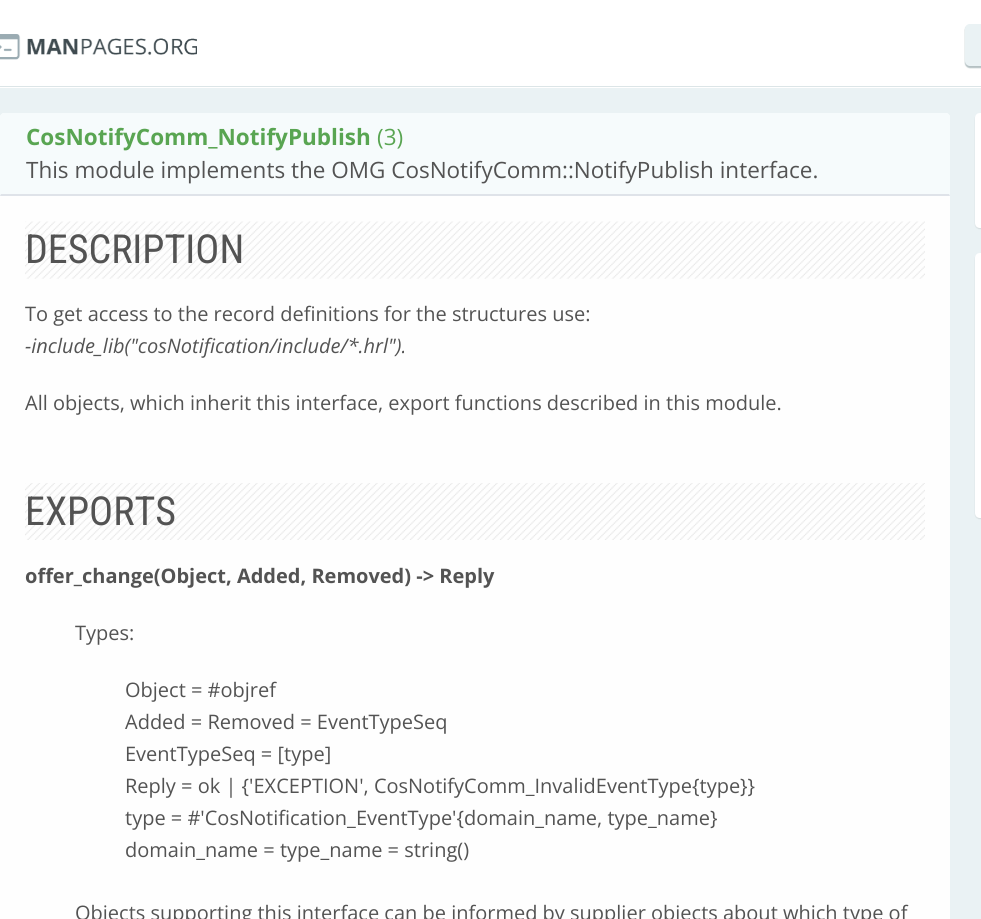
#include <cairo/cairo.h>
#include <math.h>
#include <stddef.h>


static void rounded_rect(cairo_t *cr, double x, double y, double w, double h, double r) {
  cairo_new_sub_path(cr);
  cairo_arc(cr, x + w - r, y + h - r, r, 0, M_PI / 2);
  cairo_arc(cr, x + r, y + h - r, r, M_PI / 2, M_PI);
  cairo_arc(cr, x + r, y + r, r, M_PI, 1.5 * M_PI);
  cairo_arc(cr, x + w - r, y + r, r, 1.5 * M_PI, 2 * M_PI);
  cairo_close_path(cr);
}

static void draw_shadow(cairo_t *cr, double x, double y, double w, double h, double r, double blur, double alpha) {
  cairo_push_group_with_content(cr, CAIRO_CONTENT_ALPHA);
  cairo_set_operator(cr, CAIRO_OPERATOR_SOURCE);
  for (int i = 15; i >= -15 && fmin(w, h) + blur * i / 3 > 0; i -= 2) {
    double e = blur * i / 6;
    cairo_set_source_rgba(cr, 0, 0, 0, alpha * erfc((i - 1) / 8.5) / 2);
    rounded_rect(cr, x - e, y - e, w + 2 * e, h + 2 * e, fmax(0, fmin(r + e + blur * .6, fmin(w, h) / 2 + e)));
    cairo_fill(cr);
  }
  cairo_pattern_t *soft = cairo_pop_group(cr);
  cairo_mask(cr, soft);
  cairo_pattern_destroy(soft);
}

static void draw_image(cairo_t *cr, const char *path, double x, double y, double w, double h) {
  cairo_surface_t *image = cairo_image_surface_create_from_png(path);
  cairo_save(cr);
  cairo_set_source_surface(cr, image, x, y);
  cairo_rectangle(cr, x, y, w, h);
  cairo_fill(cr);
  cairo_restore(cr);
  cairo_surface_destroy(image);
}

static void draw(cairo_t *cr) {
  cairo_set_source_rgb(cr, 234 / 255.0, 242 / 255.0, 244 / 255.0);
  cairo_paint(cr);
  cairo_set_source_rgb(cr, 1, 1, 1);
  cairo_rectangle(cr, 0, 0, 981, 88);
  cairo_fill(cr);
  cairo_set_source_rgb(cr, 220 / 255.0, 229 / 255.0, 231 / 255.0);
  cairo_rectangle(cr, 0, 86, 981, 1);
  cairo_fill(cr);
  draw_image(cr, "images/1.png", 0, 34, 197, 26);
  cairo_set_source_rgb(cr, 6 / 255.0, 47 / 255.0, 55 / 255.0);
  draw_shadow(cr, 965, 25, 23, 43, 5, 0.5, 0.3);
  cairo_set_source_rgb(cr, 234 / 255.0, 242 / 255.0, 244 / 255.0);
  rounded_rect(cr, 965, 24, 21, 42, 5);
  cairo_fill(cr);
  cairo_set_source_rgb(cr, 254 / 255.0, 254 / 255.0, 254 / 255.0);
  cairo_new_path(cr);
  cairo_move_to(cr, 5, 113);
  cairo_line_to(cr, 945, 113);
  cairo_curve_to(cr, 948, 113, 950, 115, 950, 118);
  cairo_line_to(cr, 950, 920);
  cairo_line_to(cr, 0, 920);
  cairo_line_to(cr, 0, 118);
  cairo_curve_to(cr, 0, 115, 2, 113, 5, 113);
  cairo_close_path(cr);
  cairo_fill(cr);
  cairo_set_source_rgb(cr, 246 / 255.0, 251 / 255.0, 252 / 255.0);
  cairo_new_path(cr);
  cairo_move_to(cr, 4, 113);
  cairo_line_to(cr, 946, 113);
  cairo_curve_to(cr, 948, 113, 950, 115, 950, 117);
  cairo_line_to(cr, 950, 196);
  cairo_line_to(cr, 0, 196);
  cairo_line_to(cr, 0, 117);
  cairo_curve_to(cr, 0, 115, 2, 113, 4, 113);
  cairo_close_path(cr);
  cairo_fill(cr);
  cairo_set_source_rgb(cr, 223 / 255.0, 227 / 255.0, 233 / 255.0);
  cairo_new_path(cr);
  cairo_move_to(cr, 950, 196);
  cairo_line_to(cr, 0, 196);
  cairo_line_to(cr, 1, 194);
  cairo_line_to(cr, 949, 194);
  cairo_close_path(cr);
  cairo_fill(cr);
  draw_image(cr, "images/2.png", 25, 221, 900, 58);
  draw_image(cr, "images/3.png", 25, 483, 900, 57);
  cairo_set_source_rgb(cr, 0, 0, 0);
  draw_shadow(cr, 975, 114, 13, 115, 5, 0.5, 0.1);
  cairo_set_source_rgb(cr, 1, 1, 1);
  cairo_new_path(cr);
  cairo_move_to(cr, 980, 113);
  cairo_line_to(cr, 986, 113);
  cairo_line_to(cr, 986, 228);
  cairo_line_to(cr, 980, 228);
  cairo_curve_to(cr, 977, 228, 975, 226, 975, 223);
  cairo_line_to(cr, 975, 118);
  cairo_curve_to(cr, 975, 115, 977, 113, 980, 113);
  cairo_close_path(cr);
  cairo_fill(cr);
  cairo_set_source_rgb(cr, 0, 0, 0);
  draw_shadow(cr, 975, 254, 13, 265, 5, 0.5, 0.1);
  cairo_set_source_rgb(cr, 1, 1, 1);
  cairo_new_path(cr);
  cairo_move_to(cr, 980, 253);
  cairo_line_to(cr, 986, 253);
  cairo_line_to(cr, 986, 518);
  cairo_line_to(cr, 980, 518);
  cairo_curve_to(cr, 977, 518, 975, 516, 975, 513);
  cairo_line_to(cr, 975, 258);
  cairo_curve_to(cr, 975, 255, 977, 253, 980, 253);
  cairo_close_path(cr);
  cairo_fill(cr);
  cairo_select_font_face(cr, "Open Sans", CAIRO_FONT_SLANT_NORMAL, CAIRO_FONT_WEIGHT_BOLD);
  cairo_set_font_size(cr, 22.5);
  cairo_set_source_rgb(cr, 89 / 255.0, 165 / 255.0, 82 / 255.0);
  cairo_move_to(cr, 26, 145);
  cairo_show_text(cr, "CosNotifyComm_NotifyPublish");
  cairo_select_font_face(cr, "Open Sans", CAIRO_FONT_SLANT_NORMAL, CAIRO_FONT_WEIGHT_NORMAL);
  cairo_move_to(cr, 377, 145);
  cairo_show_text(cr, "(3)");
  cairo_set_source_rgb(cr, 83 / 255.0, 83 / 255.0, 83 / 255.0);
  cairo_move_to(cr, 26, 178);
  cairo_show_text(cr, "This module implements the OMG CosNotifyComm::NotifyPublish interface.");
  cairo_select_font_face(cr, "Roboto Condensed", CAIRO_FONT_SLANT_NORMAL, CAIRO_FONT_WEIGHT_NORMAL);
  cairo_set_font_size(cr, 40);
  cairo_move_to(cr, 25, 263);
  cairo_show_text(cr, "DESCRIPTION");
  cairo_select_font_face(cr, "Open Sans", CAIRO_FONT_SLANT_NORMAL, CAIRO_FONT_WEIGHT_NORMAL);
  cairo_set_font_size(cr, 20);
  cairo_move_to(cr, 25, 321);
  cairo_show_text(cr, "To get access to the record definitions for the structures use:");
  cairo_select_font_face(cr, "Open Sans", CAIRO_FONT_SLANT_ITALIC, CAIRO_FONT_WEIGHT_NORMAL);
  cairo_move_to(cr, 25, 353);
  cairo_show_text(cr, "-include_lib(\"cosNotification/include/*.hrl\").");
  cairo_select_font_face(cr, "Open Sans", CAIRO_FONT_SLANT_NORMAL, CAIRO_FONT_WEIGHT_NORMAL);
  cairo_move_to(cr, 25, 410);
  cairo_show_text(cr, "All objects, which inherit this interface, export functions described in this module.");
  cairo_select_font_face(cr, "Roboto Condensed", CAIRO_FONT_SLANT_NORMAL, CAIRO_FONT_WEIGHT_NORMAL);
  cairo_set_font_size(cr, 40);
  cairo_move_to(cr, 25, 525);
  cairo_show_text(cr, "EXPORTS");
  cairo_select_font_face(cr, "Open Sans", CAIRO_FONT_SLANT_NORMAL, CAIRO_FONT_WEIGHT_BOLD);
  cairo_set_font_size(cr, 20);
  cairo_move_to(cr, 25, 583);
  cairo_show_text(cr, "offer_change(Object, Added, Removed) -> Reply");
  cairo_select_font_face(cr, "Open Sans", CAIRO_FONT_SLANT_NORMAL, CAIRO_FONT_WEIGHT_NORMAL);
  cairo_move_to(cr, 75, 640);
  cairo_show_text(cr, "Types:");
  cairo_move_to(cr, 125, 697);
  cairo_show_text(cr, "Object = #objref");
  cairo_move_to(cr, 125, 729);
  cairo_show_text(cr, "Added = Removed = EventTypeSeq");
  cairo_move_to(cr, 125, 761);
  cairo_show_text(cr, "EventTypeSeq = [type]");
  cairo_move_to(cr, 125, 793);
  cairo_show_text(cr, "Reply = ok | {'EXCEPTION', CosNotifyComm_InvalidEventType{type}}");
  cairo_move_to(cr, 125, 825);
  cairo_show_text(cr, "type = #'CosNotification_EventType'{domain_name, type_name}");
  cairo_move_to(cr, 125, 857);
  cairo_show_text(cr, "domain_name = type_name = string()");
  cairo_move_to(cr, 75, 920);
  cairo_show_text(cr, "Objects supporting this interface can be informed by supplier objects about which type of");
}

int main(void) {
  cairo_surface_t *surface = cairo_image_surface_create(CAIRO_FORMAT_RGB24, 981, 919);
  cairo_t *cr = cairo_create(surface);
  cairo_font_options_t *options = cairo_font_options_create();
  cairo_font_options_set_hint_metrics(options, CAIRO_HINT_METRICS_OFF);
  cairo_font_options_set_hint_style(options, CAIRO_HINT_STYLE_NONE);
  cairo_set_font_options(cr, options);
  cairo_set_miter_limit(cr, 4);
  draw(cr);
  cairo_surface_write_to_png(surface, "out.png");
  cairo_font_options_destroy(options);
  cairo_destroy(cr);
  cairo_surface_destroy(surface);
  return 0;
}
